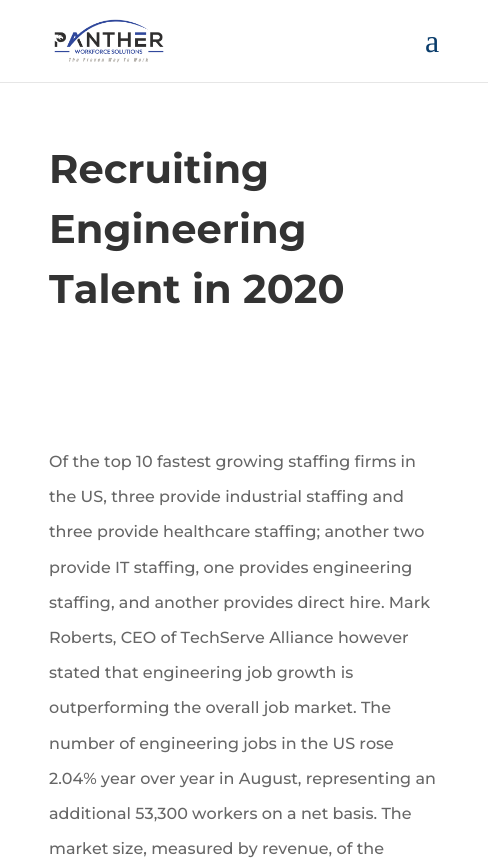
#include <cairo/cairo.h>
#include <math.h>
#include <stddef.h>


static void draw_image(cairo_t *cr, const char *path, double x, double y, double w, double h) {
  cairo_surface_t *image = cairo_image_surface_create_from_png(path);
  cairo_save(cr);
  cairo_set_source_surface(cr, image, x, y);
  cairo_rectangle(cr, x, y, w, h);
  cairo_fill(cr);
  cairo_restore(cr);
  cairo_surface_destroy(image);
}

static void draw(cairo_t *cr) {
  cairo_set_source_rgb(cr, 1, 1, 1);
  cairo_paint(cr);
  cairo_set_source_rgb(cr, 230 / 255.0, 230 / 255.0, 230 / 255.0);
  cairo_rectangle(cr, 0, 82, 488, 1);
  cairo_fill(cr);
  draw_image(cr, "images/1.png", 54, 19, 110, 44);
  cairo_select_font_face(cr, "Liberation Serif", CAIRO_FONT_SLANT_NORMAL, CAIRO_FONT_WEIGHT_NORMAL);
  cairo_set_font_size(cr, 32);
  cairo_set_source_rgb(cr, 9 / 255.0, 60 / 255.0, 107 / 255.0);
  cairo_move_to(cr, 425, 52);
  cairo_show_text(cr, "a");
  cairo_select_font_face(cr, "Montserrat Thin", CAIRO_FONT_SLANT_NORMAL, CAIRO_FONT_WEIGHT_NORMAL);
  cairo_set_font_size(cr, 40);
  cairo_set_source_rgb(cr, 51 / 255.0, 51 / 255.0, 51 / 255.0);
  cairo_move_to(cr, 49, 183);
  cairo_show_text(cr, "Recruiting");
  cairo_move_to(cr, 49, 243);
  cairo_show_text(cr, "Engineering");
  cairo_move_to(cr, 49, 303);
  cairo_show_text(cr, "Talent in 2020");
  cairo_select_font_face(cr, "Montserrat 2 Thin", CAIRO_FONT_SLANT_NORMAL, CAIRO_FONT_WEIGHT_NORMAL);
  cairo_set_font_size(cr, 16);
  cairo_set_source_rgb(cr, 102 / 255.0, 102 / 255.0, 102 / 255.0);
  cairo_move_to(cr, 49, 467);
  cairo_show_text(cr, "Of the top 10 fastest growing staffing firms in");
  cairo_move_to(cr, 49, 502);
  cairo_show_text(cr, "the US, three provide industrial staffing and");
  cairo_move_to(cr, 49, 537);
  cairo_show_text(cr, "three provide healthcare staffing; another two");
  cairo_move_to(cr, 49, 573);
  cairo_show_text(cr, "provide IT staffing, one provides engineering");
  cairo_move_to(cr, 49, 608);
  cairo_show_text(cr, "staffing, and another provides direct hire. Mark");
  cairo_move_to(cr, 49, 643);
  cairo_show_text(cr, "Roberts, CEO of TechServe Alliance however");
  cairo_move_to(cr, 49, 678);
  cairo_show_text(cr, "stated that engineering job growth is");
  cairo_move_to(cr, 49, 713);
  cairo_show_text(cr, "outperforming the overall job market. The");
  cairo_move_to(cr, 49, 749);
  cairo_show_text(cr, "number of engineering jobs in the US rose");
  cairo_move_to(cr, 49, 784);
  cairo_show_text(cr, "2.04% year over year in August, representing an");
  cairo_move_to(cr, 49, 819);
  cairo_show_text(cr, "additional 53,300 workers on a net basis. The");
  cairo_move_to(cr, 49, 854);
  cairo_show_text(cr, "market size, measured by revenue, of the");
}

int main(void) {
  cairo_surface_t *surface = cairo_image_surface_create(CAIRO_FORMAT_RGB24, 488, 862);
  cairo_t *cr = cairo_create(surface);
  cairo_font_options_t *options = cairo_font_options_create();
  cairo_font_options_set_hint_metrics(options, CAIRO_HINT_METRICS_OFF);
  cairo_font_options_set_hint_style(options, CAIRO_HINT_STYLE_NONE);
  cairo_set_font_options(cr, options);
  cairo_set_miter_limit(cr, 4);
  draw(cr);
  cairo_surface_write_to_png(surface, "out.png");
  cairo_font_options_destroy(options);
  cairo_destroy(cr);
  cairo_surface_destroy(surface);
  return 0;
}
